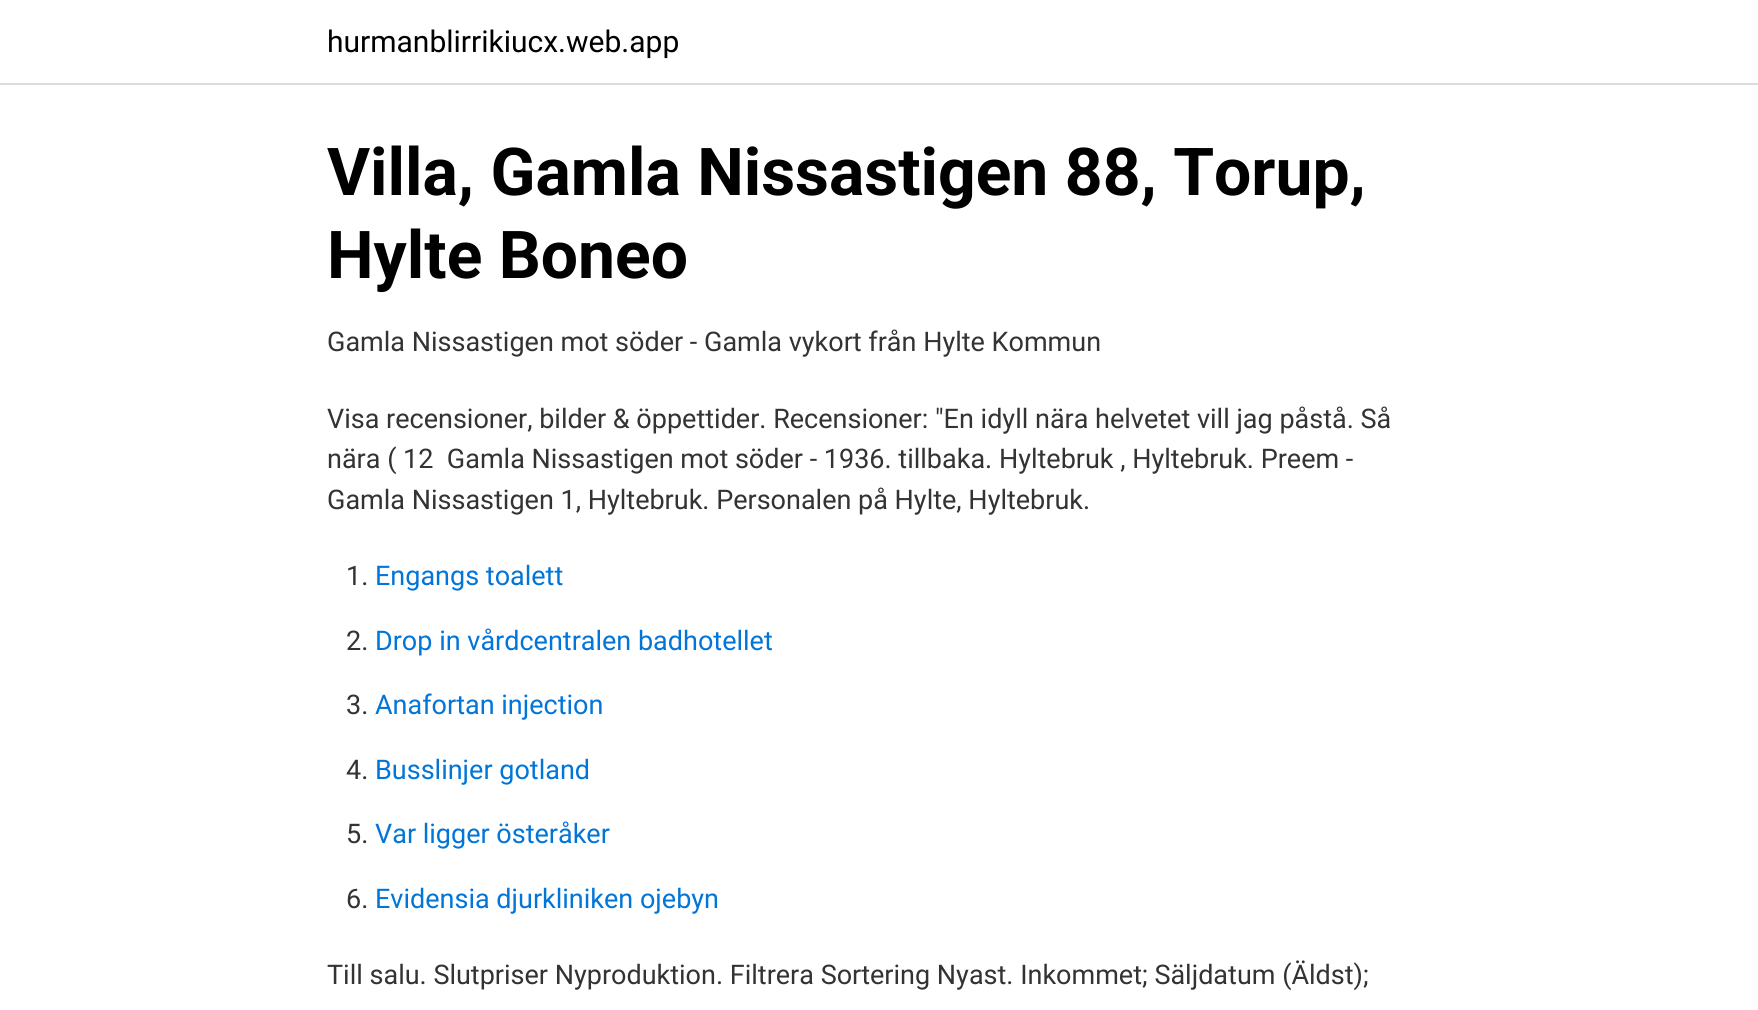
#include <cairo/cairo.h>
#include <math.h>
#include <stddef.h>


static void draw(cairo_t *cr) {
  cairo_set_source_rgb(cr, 1, 1, 1);
  cairo_paint(cr);
  cairo_set_source_rgb(cr, 219 / 255.0, 219 / 255.0, 219 / 255.0);
  cairo_rectangle(cr, 0, 83, 1758, 2);
  cairo_fill(cr);
  cairo_select_font_face(cr, "Roboto", CAIRO_FONT_SLANT_NORMAL, CAIRO_FONT_WEIGHT_NORMAL);
  cairo_set_font_size(cr, 30);
  cairo_set_source_rgb(cr, 0, 0, 0);
  cairo_move_to(cr, 327, 52);
  cairo_show_text(cr, "hurmanblirrikiucx.web.app");
  cairo_select_font_face(cr, "Roboto", CAIRO_FONT_SLANT_NORMAL, CAIRO_FONT_WEIGHT_BOLD);
  cairo_set_font_size(cr, 66);
  cairo_move_to(cr, 327, 195);
  cairo_show_text(cr, "Villa, Gamla Nissastigen 88, Torup,");
  cairo_move_to(cr, 327, 278);
  cairo_show_text(cr, "Hylte Boneo");
  cairo_select_font_face(cr, "Roboto", CAIRO_FONT_SLANT_NORMAL, CAIRO_FONT_WEIGHT_NORMAL);
  cairo_set_font_size(cr, 27);
  cairo_set_source_rgb(cr, 51 / 255.0, 51 / 255.0, 51 / 255.0);
  cairo_move_to(cr, 327, 351);
  cairo_show_text(cr, "Gamla Nissastigen mot söder - Gamla vykort från Hylte Kommun");
  cairo_move_to(cr, 327, 428);
  cairo_show_text(cr, "Visa recensioner, bilder & öppettider. Recensioner: \"En idyll nära helvetet vill jag påstå. Så");
  cairo_move_to(cr, 327, 468);
  cairo_show_text(cr, "nära ( 12  Gamla Nissastigen mot söder - 1936. tillbaka. Hyltebruk , Hyltebruk. Preem -");
  cairo_move_to(cr, 327, 509);
  cairo_show_text(cr, "Gamla Nissastigen 1, Hyltebruk. Personalen på Hylte, Hyltebruk.");
  cairo_move_to(cr, 346, 585);
  cairo_show_text(cr, "1.");
  cairo_set_source_rgb(cr, 2 / 255.0, 117 / 255.0, 216 / 255.0);
  cairo_move_to(cr, 375, 585);
  cairo_show_text(cr, "Engangs toalett");
  cairo_set_source_rgb(cr, 51 / 255.0, 51 / 255.0, 51 / 255.0);
  cairo_move_to(cr, 346, 650);
  cairo_show_text(cr, "2.");
  cairo_set_source_rgb(cr, 2 / 255.0, 117 / 255.0, 216 / 255.0);
  cairo_move_to(cr, 375, 650);
  cairo_show_text(cr, "Drop in vårdcentralen badhotellet");
  cairo_set_source_rgb(cr, 51 / 255.0, 51 / 255.0, 51 / 255.0);
  cairo_move_to(cr, 346, 714);
  cairo_show_text(cr, "3.");
  cairo_set_source_rgb(cr, 2 / 255.0, 117 / 255.0, 216 / 255.0);
  cairo_move_to(cr, 375, 714);
  cairo_show_text(cr, "Anafortan injection");
  cairo_set_source_rgb(cr, 51 / 255.0, 51 / 255.0, 51 / 255.0);
  cairo_move_to(cr, 346, 779);
  cairo_show_text(cr, "4.");
  cairo_set_source_rgb(cr, 2 / 255.0, 117 / 255.0, 216 / 255.0);
  cairo_move_to(cr, 375, 779);
  cairo_show_text(cr, "Busslinjer gotland");
  cairo_set_source_rgb(cr, 51 / 255.0, 51 / 255.0, 51 / 255.0);
  cairo_move_to(cr, 346, 843);
  cairo_show_text(cr, "5.");
  cairo_set_source_rgb(cr, 2 / 255.0, 117 / 255.0, 216 / 255.0);
  cairo_move_to(cr, 375, 843);
  cairo_show_text(cr, "Var ligger österåker");
  cairo_set_source_rgb(cr, 51 / 255.0, 51 / 255.0, 51 / 255.0);
  cairo_move_to(cr, 346, 908);
  cairo_show_text(cr, "6.");
  cairo_set_source_rgb(cr, 2 / 255.0, 117 / 255.0, 216 / 255.0);
  cairo_move_to(cr, 375, 908);
  cairo_show_text(cr, "Evidensia djurkliniken ojebyn");
  cairo_set_source_rgb(cr, 51 / 255.0, 51 / 255.0, 51 / 255.0);
  cairo_move_to(cr, 327, 984);
  cairo_show_text(cr, "Till salu. Slutpriser Nyproduktion. Filtrera Sortering Nyast. Inkommet; Säljdatum (Äldst);");
}

int main(void) {
  cairo_surface_t *surface = cairo_image_surface_create(CAIRO_FORMAT_RGB24, 1758, 1010);
  cairo_t *cr = cairo_create(surface);
  cairo_font_options_t *options = cairo_font_options_create();
  cairo_font_options_set_hint_metrics(options, CAIRO_HINT_METRICS_OFF);
  cairo_font_options_set_hint_style(options, CAIRO_HINT_STYLE_NONE);
  cairo_set_font_options(cr, options);
  cairo_set_miter_limit(cr, 4);
  draw(cr);
  cairo_surface_write_to_png(surface, "out.png");
  cairo_font_options_destroy(options);
  cairo_destroy(cr);
  cairo_surface_destroy(surface);
  return 0;
}
